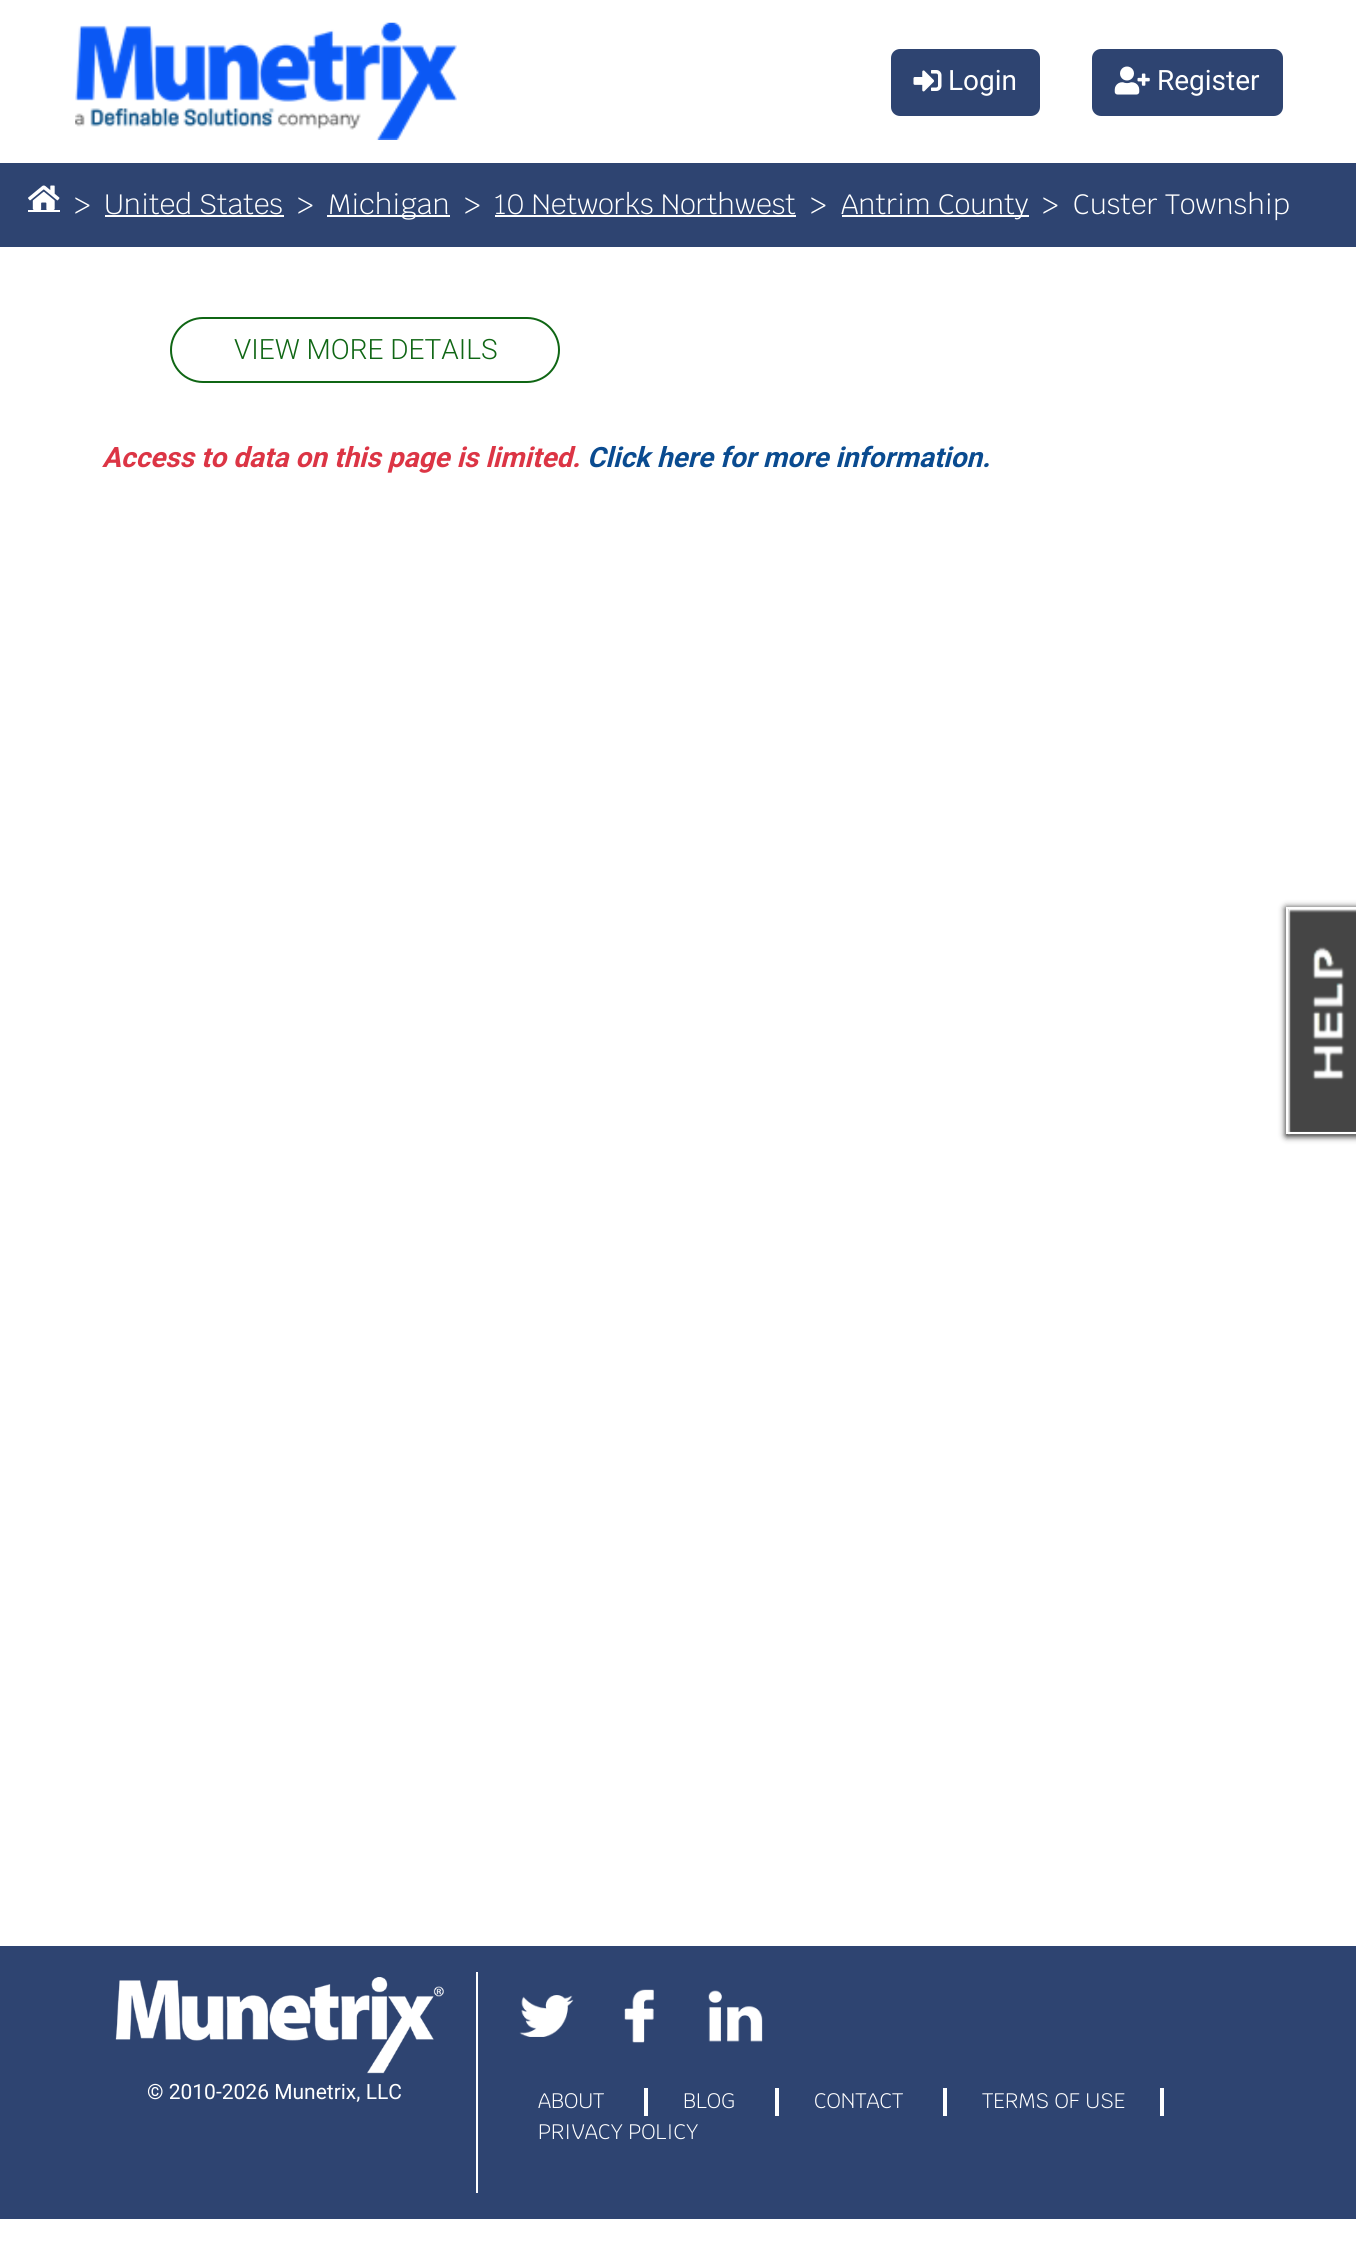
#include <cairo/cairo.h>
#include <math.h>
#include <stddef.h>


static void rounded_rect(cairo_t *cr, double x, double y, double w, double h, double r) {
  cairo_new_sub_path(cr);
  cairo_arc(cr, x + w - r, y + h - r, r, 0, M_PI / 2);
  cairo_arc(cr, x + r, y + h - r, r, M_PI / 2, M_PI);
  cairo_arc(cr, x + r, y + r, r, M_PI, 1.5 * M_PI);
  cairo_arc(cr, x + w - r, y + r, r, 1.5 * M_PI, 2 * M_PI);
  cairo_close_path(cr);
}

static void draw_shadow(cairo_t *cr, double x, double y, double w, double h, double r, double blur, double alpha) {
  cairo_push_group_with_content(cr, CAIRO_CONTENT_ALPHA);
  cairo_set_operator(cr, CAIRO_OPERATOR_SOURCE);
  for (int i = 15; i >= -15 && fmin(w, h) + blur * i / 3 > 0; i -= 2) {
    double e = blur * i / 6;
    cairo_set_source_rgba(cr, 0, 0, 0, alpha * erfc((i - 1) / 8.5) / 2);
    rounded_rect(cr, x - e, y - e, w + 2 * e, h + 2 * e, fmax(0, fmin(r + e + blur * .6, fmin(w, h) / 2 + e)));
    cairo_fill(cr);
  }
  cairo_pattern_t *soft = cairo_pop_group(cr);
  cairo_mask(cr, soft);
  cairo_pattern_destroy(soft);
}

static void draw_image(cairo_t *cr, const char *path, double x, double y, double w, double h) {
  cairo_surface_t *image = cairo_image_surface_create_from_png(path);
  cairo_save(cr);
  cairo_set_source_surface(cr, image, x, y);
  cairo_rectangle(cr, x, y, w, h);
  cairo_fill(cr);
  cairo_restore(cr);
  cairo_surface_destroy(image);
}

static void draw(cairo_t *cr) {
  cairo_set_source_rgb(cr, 1, 1, 1);
  cairo_paint(cr);
  draw_image(cr, "images/1.png", 75, 22, 382, 118);
  cairo_set_source_rgb(cr, 46 / 255.0, 68 / 255.0, 113 / 255.0);
  rounded_rect(cr, 892, 50, 147, 65, 8);
  cairo_fill_preserve(cr);
  cairo_stroke(cr);
  draw_image(cr, "images/2.png", 913, 70, 29, 22);
  rounded_rect(cr, 1093, 50, 189, 65, 8);
  cairo_fill_preserve(cr);
  cairo_stroke(cr);
  draw_image(cr, "images/3.png", 1114, 66, 36, 29);
  cairo_rectangle(cr, 0, 163, 1356, 84);
  cairo_fill(cr);
  draw_image(cr, "images/4.png", 28, 185, 32, 25);
  cairo_set_source_rgb(cr, 1, 1, 1);
  cairo_rectangle(cr, 28, 210, 32, 2);
  cairo_fill(cr);
  cairo_rectangle(cr, 105, 215, 179, 2);
  cairo_fill(cr);
  cairo_rectangle(cr, 327, 215, 123, 2);
  cairo_fill(cr);
  cairo_rectangle(cr, 495, 215, 301, 2);
  cairo_fill(cr);
  cairo_rectangle(cr, 842, 215, 187, 2);
  cairo_fill(cr);
  rounded_rect(cr, 171, 318, 388, 64, 32);
  cairo_set_source_rgb(cr, 15 / 255.0, 102 / 255.0, 20 / 255.0);
  cairo_stroke(cr);
  cairo_set_source_rgb(cr, 46 / 255.0, 68 / 255.0, 113 / 255.0);
  cairo_rectangle(cr, 0, 1946, 1356, 273);
  cairo_fill(cr);
  cairo_set_source_rgb(cr, 1, 1, 1);
  cairo_rectangle(cr, 476, 1972, 2, 221);
  cairo_fill(cr);
  draw_image(cr, "images/5.png", 115, 1977, 329, 97);
  draw_image(cr, "images/6.png", 519, 1995, 55, 42);
  draw_image(cr, "images/7.png", 624, 1989, 30, 54);
  draw_image(cr, "images/8.png", 708, 1990, 55, 52);
  cairo_rectangle(cr, 644, 2088, 4, 28);
  cairo_fill(cr);
  cairo_rectangle(cr, 775, 2088, 4, 28);
  cairo_fill(cr);
  cairo_rectangle(cr, 943, 2088, 4, 28);
  cairo_fill(cr);
  cairo_rectangle(cr, 1160, 2088, 4, 28);
  cairo_fill(cr);
  cairo_set_source_rgb(cr, 0, 0, 0);
  draw_shadow(cr, 1286, 908, 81, 228, 0, 3.5, 0.95);
  cairo_set_source_rgb(cr, 69 / 255.0, 69 / 255.0, 69 / 255.0);
  cairo_rectangle(cr, 1288, 909, 68, 223);
  cairo_fill(cr);
  draw_image(cr, "images/9.png", 1287, 909, 69, 226);
  cairo_rectangle(cr, 1287, 908, 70, 225);
  cairo_set_source_rgb(cr, 1, 1, 1);
  cairo_stroke(cr);
  cairo_select_font_face(cr, "Roboto", CAIRO_FONT_SLANT_NORMAL, CAIRO_FONT_WEIGHT_NORMAL);
  cairo_set_font_size(cr, 28);
  cairo_move_to(cr, 948, 90);
  cairo_show_text(cr, "Login");
  cairo_move_to(cr, 1157, 90);
  cairo_show_text(cr, "Register");
  cairo_select_font_face(cr, "Krub Light", CAIRO_FONT_SLANT_NORMAL, CAIRO_FONT_WEIGHT_NORMAL);
  cairo_move_to(cr, 74, 214);
  cairo_show_text(cr, ">");
  cairo_move_to(cr, 104, 214);
  cairo_show_text(cr, "United States");
  cairo_move_to(cr, 297, 214);
  cairo_show_text(cr, ">");
  cairo_move_to(cr, 328, 214);
  cairo_show_text(cr, "Michigan");
  cairo_move_to(cr, 464, 214);
  cairo_show_text(cr, ">");
  cairo_move_to(cr, 494, 214);
  cairo_show_text(cr, "10 Networks Northwest");
  cairo_move_to(cr, 810, 214);
  cairo_show_text(cr, ">");
  cairo_move_to(cr, 841, 214);
  cairo_show_text(cr, "Antrim County");
  cairo_move_to(cr, 1042, 214);
  cairo_show_text(cr, ">");
  cairo_move_to(cr, 1073, 214);
  cairo_show_text(cr, "Custer Township");
  cairo_select_font_face(cr, "Roboto Light", CAIRO_FONT_SLANT_NORMAL, CAIRO_FONT_WEIGHT_NORMAL);
  cairo_set_source_rgb(cr, 15 / 255.0, 102 / 255.0, 20 / 255.0);
  cairo_move_to(cr, 234, 359);
  cairo_show_text(cr, "VIEW MORE DETAILS");
  cairo_select_font_face(cr, "Roboto", CAIRO_FONT_SLANT_ITALIC, CAIRO_FONT_WEIGHT_BOLD);
  cairo_set_source_rgb(cr, 220 / 255.0, 53 / 255.0, 69 / 255.0);
  cairo_move_to(cr, 102, 467);
  cairo_show_text(cr, "Access to data on this page is limited.");
  cairo_set_source_rgb(cr, 10 / 255.0, 75 / 255.0, 144 / 255.0);
  cairo_move_to(cr, 587, 467);
  cairo_show_text(cr, "Click here for more information.");
  cairo_select_font_face(cr, "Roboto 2", CAIRO_FONT_SLANT_NORMAL, CAIRO_FONT_WEIGHT_NORMAL);
  cairo_set_font_size(cr, 21);
  cairo_set_source_rgb(cr, 1, 1, 1);
  cairo_move_to(cr, 147, 2099);
  cairo_show_text(cr, "© 2010-2026 Munetrix, LLC");
  cairo_select_font_face(cr, "Krub Light", CAIRO_FONT_SLANT_NORMAL, CAIRO_FONT_WEIGHT_NORMAL);
  cairo_move_to(cr, 538, 2108);
  cairo_show_text(cr, "ABOUT");
  cairo_move_to(cr, 683, 2108);
  cairo_show_text(cr, "BLOG");
  cairo_move_to(cr, 814, 2108);
  cairo_show_text(cr, "CONTACT");
  cairo_move_to(cr, 982, 2108);
  cairo_show_text(cr, "TERMS OF USE");
  cairo_move_to(cr, 538, 2139);
  cairo_show_text(cr, "PRIVACY POLICY");
}

int main(void) {
  cairo_surface_t *surface = cairo_image_surface_create(CAIRO_FORMAT_RGB24, 1356, 2264);
  cairo_t *cr = cairo_create(surface);
  cairo_font_options_t *options = cairo_font_options_create();
  cairo_font_options_set_hint_metrics(options, CAIRO_HINT_METRICS_OFF);
  cairo_font_options_set_hint_style(options, CAIRO_HINT_STYLE_NONE);
  cairo_set_font_options(cr, options);
  cairo_set_miter_limit(cr, 4);
  draw(cr);
  cairo_surface_write_to_png(surface, "out.png");
  cairo_font_options_destroy(options);
  cairo_destroy(cr);
  cairo_surface_destroy(surface);
  return 0;
}
